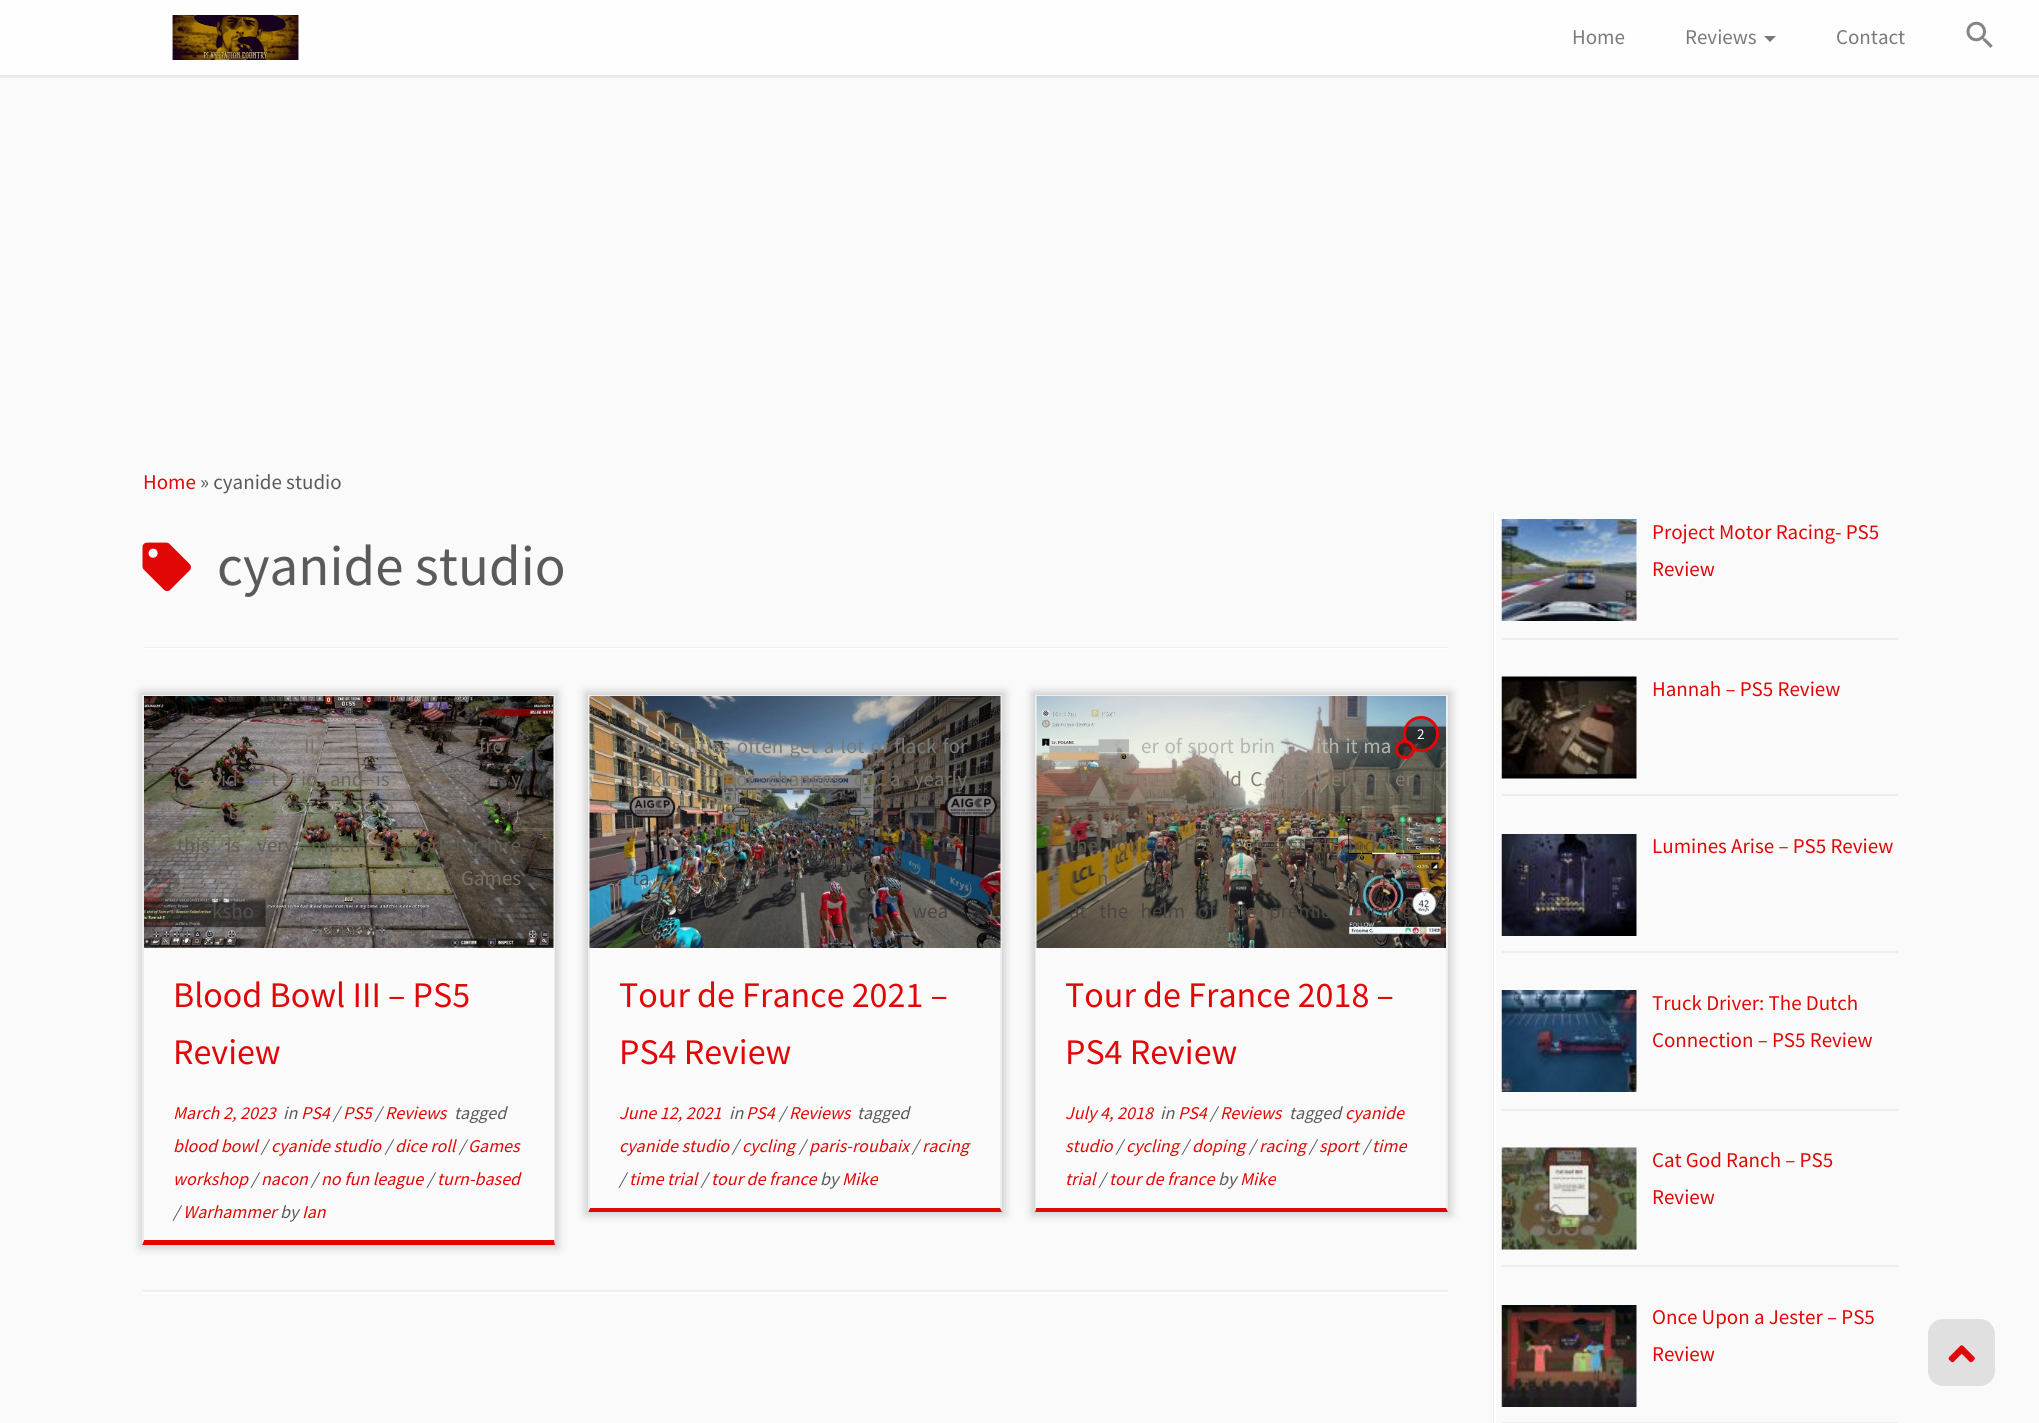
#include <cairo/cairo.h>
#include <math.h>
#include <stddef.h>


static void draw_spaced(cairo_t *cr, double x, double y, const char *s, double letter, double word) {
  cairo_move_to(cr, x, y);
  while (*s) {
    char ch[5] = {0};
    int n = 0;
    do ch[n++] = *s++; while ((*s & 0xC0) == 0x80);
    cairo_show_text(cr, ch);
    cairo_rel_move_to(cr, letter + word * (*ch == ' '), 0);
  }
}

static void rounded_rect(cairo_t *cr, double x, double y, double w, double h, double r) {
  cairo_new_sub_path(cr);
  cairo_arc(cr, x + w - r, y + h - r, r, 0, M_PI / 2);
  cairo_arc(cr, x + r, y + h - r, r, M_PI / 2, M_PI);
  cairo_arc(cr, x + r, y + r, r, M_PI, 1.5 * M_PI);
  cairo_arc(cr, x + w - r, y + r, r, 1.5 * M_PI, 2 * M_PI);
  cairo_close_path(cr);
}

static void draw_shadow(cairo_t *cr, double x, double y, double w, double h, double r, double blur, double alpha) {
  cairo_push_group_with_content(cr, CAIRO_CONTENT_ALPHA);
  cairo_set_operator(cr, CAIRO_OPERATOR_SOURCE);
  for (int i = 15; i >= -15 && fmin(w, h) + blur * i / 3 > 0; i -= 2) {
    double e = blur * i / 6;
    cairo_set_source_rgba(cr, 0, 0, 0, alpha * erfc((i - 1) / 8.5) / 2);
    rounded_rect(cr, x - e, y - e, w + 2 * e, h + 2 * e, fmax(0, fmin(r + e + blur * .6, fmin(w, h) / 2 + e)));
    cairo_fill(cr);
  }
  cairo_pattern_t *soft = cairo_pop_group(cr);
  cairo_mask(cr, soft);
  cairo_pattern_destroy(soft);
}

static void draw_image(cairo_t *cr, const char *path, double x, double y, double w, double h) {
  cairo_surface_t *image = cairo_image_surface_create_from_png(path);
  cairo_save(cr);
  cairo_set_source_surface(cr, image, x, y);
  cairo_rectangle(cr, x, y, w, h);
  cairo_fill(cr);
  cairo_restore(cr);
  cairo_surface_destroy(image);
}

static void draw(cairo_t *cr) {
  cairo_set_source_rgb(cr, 250 / 255.0, 250 / 255.0, 250 / 255.0);
  cairo_paint(cr);
  cairo_set_source_rgb(cr, 254 / 255.0, 254 / 255.0, 254 / 255.0);
  cairo_rectangle(cr, 0, 0, 2039, 75);
  cairo_fill(cr);
  cairo_set_source_rgb(cr, 233 / 255.0, 234 / 255.0, 238 / 255.0);
  cairo_rectangle(cr, 0, 75, 2039, 3);
  cairo_fill(cr);
  draw_image(cr, "images/1.png", 172, 15, 127, 45);
  cairo_set_source_rgb(cr, 119 / 255.0, 119 / 255.0, 119 / 255.0);
  cairo_new_path(cr);
  cairo_move_to(cr, 1764, 36);
  cairo_line_to(cr, 1776, 36);
  cairo_line_to(cr, 1770, 42);
  cairo_close_path(cr);
  cairo_fill(cr);
  draw_image(cr, "images/2.png", 1966, 21, 27, 27);
  draw_image(cr, "images/3.png", 142, 542, 49, 49);
  cairo_set_source_rgb(cr, 238 / 255.0, 238 / 255.0, 238 / 255.0);
  cairo_rectangle(cr, 143, 647, 1305, 1);
  cairo_fill(cr);
  cairo_set_source_rgb(cr, 1, 1, 1);
  cairo_rectangle(cr, 143, 648, 1305, 2);
  cairo_fill(cr);
  cairo_save(cr);
  cairo_set_fill_rule(cr, CAIRO_FILL_RULE_EVEN_ODD);
  cairo_new_path(cr);
  cairo_move_to(cr, 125, 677);
  cairo_line_to(cr, 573, 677);
  cairo_line_to(cr, 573, 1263);
  cairo_line_to(cr, 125, 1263);
  cairo_close_path(cr);
  cairo_move_to(cr, 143, 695);
  cairo_line_to(cr, 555, 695);
  cairo_line_to(cr, 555, 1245);
  cairo_line_to(cr, 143, 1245);
  cairo_close_path(cr);
  cairo_clip(cr);
  cairo_set_source_rgb(cr, 204 / 255.0, 204 / 255.0, 204 / 255.0);
  draw_shadow(cr, 140, 692, 418, 556, 0, 4.5, 1);
  cairo_restore(cr);
  cairo_set_source_rgb(cr, 238 / 255.0, 238 / 255.0, 238 / 255.0);
  cairo_rectangle(cr, 143, 695, 412, 2);
  cairo_fill(cr);
  cairo_new_path(cr);
  cairo_move_to(cr, 555, 694);
  cairo_line_to(cr, 555, 1245);
  cairo_line_to(cr, 554, 1240);
  cairo_line_to(cr, 554, 696);
  cairo_close_path(cr);
  cairo_fill(cr);
  cairo_set_source_rgb(cr, 225 / 255.0, 7 / 255.0, 7 / 255.0);
  cairo_new_path(cr);
  cairo_move_to(cr, 555, 1245);
  cairo_line_to(cr, 142, 1245);
  cairo_line_to(cr, 144, 1240);
  cairo_line_to(cr, 554, 1240);
  cairo_close_path(cr);
  cairo_fill(cr);
  cairo_set_source_rgb(cr, 238 / 255.0, 238 / 255.0, 238 / 255.0);
  cairo_new_path(cr);
  cairo_move_to(cr, 142, 1245);
  cairo_line_to(cr, 142, 694);
  cairo_line_to(cr, 144, 696);
  cairo_line_to(cr, 144, 1240);
  cairo_close_path(cr);
  cairo_fill(cr);
  draw_image(cr, "images/4.png", 144, 696, 410, 252);
  cairo_save(cr);
  cairo_set_fill_rule(cr, CAIRO_FILL_RULE_EVEN_ODD);
  cairo_new_path(cr);
  cairo_move_to(cr, 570, 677);
  cairo_line_to(cr, 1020, 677);
  cairo_line_to(cr, 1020, 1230);
  cairo_line_to(cr, 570, 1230);
  cairo_close_path(cr);
  cairo_move_to(cr, 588, 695);
  cairo_line_to(cr, 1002, 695);
  cairo_line_to(cr, 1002, 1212);
  cairo_line_to(cr, 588, 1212);
  cairo_close_path(cr);
  cairo_clip(cr);
  cairo_set_source_rgb(cr, 204 / 255.0, 204 / 255.0, 204 / 255.0);
  draw_shadow(cr, 585, 692, 420, 523, 0, 4.5, 1);
  cairo_restore(cr);
  cairo_rectangle(cr, 588, 695, 414, 1);
  cairo_fill(cr);
  cairo_new_path(cr);
  cairo_move_to(cr, 1002, 694);
  cairo_line_to(cr, 1002, 1212);
  cairo_line_to(cr, 1000, 1208);
  cairo_line_to(cr, 1000, 696);
  cairo_close_path(cr);
  cairo_fill(cr);
  cairo_set_source_rgb(cr, 225 / 255.0, 7 / 255.0, 7 / 255.0);
  cairo_new_path(cr);
  cairo_move_to(cr, 1002, 1212);
  cairo_line_to(cr, 588, 1212);
  cairo_line_to(cr, 590, 1208);
  cairo_line_to(cr, 1000, 1208);
  cairo_close_path(cr);
  cairo_fill(cr);
  cairo_set_source_rgb(cr, 238 / 255.0, 238 / 255.0, 238 / 255.0);
  cairo_new_path(cr);
  cairo_move_to(cr, 588, 1212);
  cairo_line_to(cr, 588, 694);
  cairo_line_to(cr, 590, 696);
  cairo_line_to(cr, 590, 1208);
  cairo_close_path(cr);
  cairo_fill(cr);
  draw_image(cr, "images/5.png", 589, 696, 412, 252);
  cairo_save(cr);
  cairo_set_fill_rule(cr, CAIRO_FILL_RULE_EVEN_ODD);
  cairo_new_path(cr);
  cairo_move_to(cr, 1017, 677);
  cairo_line_to(cr, 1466, 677);
  cairo_line_to(cr, 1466, 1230);
  cairo_line_to(cr, 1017, 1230);
  cairo_close_path(cr);
  cairo_move_to(cr, 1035, 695);
  cairo_line_to(cr, 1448, 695);
  cairo_line_to(cr, 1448, 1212);
  cairo_line_to(cr, 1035, 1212);
  cairo_close_path(cr);
  cairo_clip(cr);
  cairo_set_source_rgb(cr, 204 / 255.0, 204 / 255.0, 204 / 255.0);
  draw_shadow(cr, 1032, 692, 419, 523, 0, 4.5, 1);
  cairo_restore(cr);
  cairo_rectangle(cr, 1035, 695, 413, 2);
  cairo_fill(cr);
  cairo_new_path(cr);
  cairo_move_to(cr, 1448, 694);
  cairo_line_to(cr, 1448, 1212);
  cairo_line_to(cr, 1446, 1208);
  cairo_line_to(cr, 1446, 696);
  cairo_close_path(cr);
  cairo_fill(cr);
  cairo_set_source_rgb(cr, 225 / 255.0, 7 / 255.0, 7 / 255.0);
  cairo_new_path(cr);
  cairo_move_to(cr, 1448, 1212);
  cairo_line_to(cr, 1035, 1212);
  cairo_line_to(cr, 1036, 1208);
  cairo_line_to(cr, 1446, 1208);
  cairo_close_path(cr);
  cairo_fill(cr);
  cairo_set_source_rgb(cr, 238 / 255.0, 238 / 255.0, 238 / 255.0);
  cairo_new_path(cr);
  cairo_move_to(cr, 1035, 1212);
  cairo_line_to(cr, 1035, 694);
  cairo_line_to(cr, 1036, 696);
  cairo_line_to(cr, 1036, 1208);
  cairo_close_path(cr);
  cairo_fill(cr);
  draw_image(cr, "images/6.png", 1036, 696, 410, 252);
  cairo_set_source_rgba(cr, 0, 0, 0, 0.4);
  cairo_arc(cr, 1421, 734, 16.5, 0, 2 * M_PI);
  cairo_fill_preserve(cr);
  cairo_set_source_rgb(cr, 225 / 255.0, 7 / 255.0, 7 / 255.0);
  cairo_set_line_width(cr, 3);
  cairo_stroke(cr);
  cairo_set_source_rgba(cr, 0, 0, 0, 0.4);
  rounded_rect(cr, 1396.5, 741.5, 17, 16, 8);
  cairo_fill_preserve(cr);
  cairo_set_source_rgb(cr, 225 / 255.0, 7 / 255.0, 7 / 255.0);
  cairo_stroke(cr);
  cairo_set_source_rgb(cr, 238 / 255.0, 238 / 255.0, 238 / 255.0);
  cairo_rectangle(cr, 143, 1290, 1305, 2);
  cairo_fill(cr);
  cairo_set_source_rgb(cr, 1, 1, 1);
  cairo_rectangle(cr, 143, 1292, 1305, 2);
  cairo_fill(cr);
  cairo_set_source_rgb(cr, 238 / 255.0, 238 / 255.0, 238 / 255.0);
  cairo_rectangle(cr, 1493, 513, 1, 910);
  cairo_fill(cr);
  cairo_set_source_rgb(cr, 1, 1, 1);
  cairo_rectangle(cr, 1494, 513, 2, 910);
  cairo_fill(cr);
  cairo_set_source_rgb(cr, 238 / 255.0, 238 / 255.0, 238 / 255.0);
  cairo_rectangle(cr, 1502, 638, 396, 2);
  cairo_fill(cr);
  draw_image(cr, "images/7.png", 1501, 519, 136, 102);
  cairo_rectangle(cr, 1502, 794, 396, 2);
  cairo_fill(cr);
  draw_image(cr, "images/8.png", 1501, 676, 136, 103);
  cairo_rectangle(cr, 1502, 951, 396, 2);
  cairo_fill(cr);
  draw_image(cr, "images/9.png", 1501, 834, 136, 102);
  cairo_rectangle(cr, 1502, 1109, 396, 2);
  cairo_fill(cr);
  draw_image(cr, "images/10.png", 1501, 990, 136, 102);
  cairo_rectangle(cr, 1502, 1265, 396, 2);
  cairo_fill(cr);
  draw_image(cr, "images/11.png", 1501, 1147, 136, 103);
  cairo_rectangle(cr, 1502, 1422, 396, 1);
  cairo_fill(cr);
  draw_image(cr, "images/12.png", 1501, 1305, 136, 102);
  cairo_set_source_rgb(cr, 224 / 255.0, 224 / 255.0, 224 / 255.0);
  rounded_rect(cr, 1928, 1319, 67, 67, 15);
  cairo_fill(cr);
  draw_image(cr, "images/13.png", 1948, 1345, 27, 18);
  cairo_select_font_face(cr, "Source Sans Pro", CAIRO_FONT_SLANT_NORMAL, CAIRO_FONT_WEIGHT_NORMAL);
  cairo_set_font_size(cr, 21);
  cairo_set_source_rgb(cr, 120 / 255.0, 123 / 255.0, 121 / 255.0);
  cairo_move_to(cr, 1572, 44);
  cairo_show_text(cr, "Home");
  cairo_move_to(cr, 1685, 44);
  cairo_show_text(cr, "Reviews");
  cairo_move_to(cr, 1836, 44);
  cairo_show_text(cr, "Contact");
  cairo_set_source_rgb(cr, 225 / 255.0, 7 / 255.0, 7 / 255.0);
  cairo_move_to(cr, 143, 489);
  cairo_show_text(cr, "Home");
  cairo_set_source_rgb(cr, 90 / 255.0, 90 / 255.0, 90 / 255.0);
  cairo_move_to(cr, 200, 489);
  cairo_show_text(cr, "» cyanide studio");
  cairo_set_font_size(cr, 57);
  cairo_move_to(cr, 217, 585);
  cairo_show_text(cr, "cyanide studio");
  cairo_set_font_size(cr, 21);
  cairo_set_source_rgb(cr, 118 / 255.0, 112 / 255.0, 109 / 255.0);
  draw_spaced(cr, 304, 753, "II", 0, 11);
  draw_spaced(cr, 479, 753, "fro", 0, 11);
  cairo_set_source_rgb(cr, 107 / 255.0, 101 / 255.0, 94 / 255.0);
  draw_spaced(cr, 177, 786, "C", 0, 8);
  draw_spaced(cr, 221, 786, "id", 0, 8);
  draw_spaced(cr, 271, 786, "t", 0, 8);
  draw_spaced(cr, 301, 786, "io and is", 0, 8);
  draw_spaced(cr, 511, 786, "y", 0, 8);
  draw_spaced(cr, 228, 819, "t", 0, 4);
  draw_spaced(cr, 516, 819, ",", 0, 4);
  cairo_set_source_rgb(cr, 98 / 255.0, 94 / 255.0, 82 / 255.0);
  draw_spaced(cr, 177, 852, "this is very much a work-for-hire", 0, 12.5);
  cairo_set_source_rgb(cr, 118 / 255.0, 114 / 255.0, 102 / 255.0);
  draw_spaced(cr, 461, 885, "Games", 0, 5);
  cairo_set_source_rgb(cr, 85 / 255.0, 81 / 255.0, 80 / 255.0);
  draw_spaced(cr, 212, 918, "ksho", 0, 6);
  draw_spaced(cr, 420, 918, "r", 0, 6);
  cairo_set_font_size(cr, 36);
  cairo_set_source_rgb(cr, 225 / 255.0, 7 / 255.0, 7 / 255.0);
  cairo_move_to(cr, 173, 1007);
  cairo_show_text(cr, "Blood Bowl III – PS5");
  cairo_move_to(cr, 173, 1064);
  cairo_show_text(cr, "Review");
  cairo_select_font_face(cr, "Source Sans Pro", CAIRO_FONT_SLANT_ITALIC, CAIRO_FONT_WEIGHT_NORMAL);
  cairo_set_font_size(cr, 18);
  cairo_move_to(cr, 173, 1119);
  cairo_show_text(cr, "March 2, 2023");
  cairo_set_source_rgb(cr, 90 / 255.0, 90 / 255.0, 90 / 255.0);
  cairo_move_to(cr, 283, 1119);
  cairo_show_text(cr, "in");
  cairo_set_source_rgb(cr, 225 / 255.0, 7 / 255.0, 7 / 255.0);
  cairo_move_to(cr, 301, 1119);
  cairo_show_text(cr, "PS4");
  cairo_set_source_rgb(cr, 90 / 255.0, 90 / 255.0, 90 / 255.0);
  cairo_move_to(cr, 333, 1119);
  cairo_show_text(cr, "/");
  cairo_set_source_rgb(cr, 225 / 255.0, 7 / 255.0, 7 / 255.0);
  cairo_move_to(cr, 343, 1119);
  cairo_show_text(cr, "PS5");
  cairo_set_source_rgb(cr, 90 / 255.0, 90 / 255.0, 90 / 255.0);
  cairo_move_to(cr, 375, 1119);
  cairo_show_text(cr, "/");
  cairo_set_source_rgb(cr, 225 / 255.0, 7 / 255.0, 7 / 255.0);
  cairo_move_to(cr, 385, 1119);
  cairo_show_text(cr, "Reviews");
  cairo_set_source_rgb(cr, 90 / 255.0, 90 / 255.0, 90 / 255.0);
  cairo_move_to(cr, 454, 1119);
  cairo_show_text(cr, "tagged");
  cairo_set_source_rgb(cr, 225 / 255.0, 7 / 255.0, 7 / 255.0);
  cairo_move_to(cr, 173, 1152);
  cairo_show_text(cr, "blood bowl");
  cairo_set_source_rgb(cr, 90 / 255.0, 90 / 255.0, 90 / 255.0);
  cairo_move_to(cr, 261, 1152);
  cairo_show_text(cr, "/");
  cairo_set_source_rgb(cr, 225 / 255.0, 7 / 255.0, 7 / 255.0);
  cairo_move_to(cr, 271, 1152);
  cairo_show_text(cr, "cyanide studio");
  cairo_set_source_rgb(cr, 90 / 255.0, 90 / 255.0, 90 / 255.0);
  cairo_move_to(cr, 385, 1152);
  cairo_show_text(cr, "/");
  cairo_set_source_rgb(cr, 225 / 255.0, 7 / 255.0, 7 / 255.0);
  cairo_move_to(cr, 395, 1152);
  cairo_show_text(cr, "dice roll");
  cairo_set_source_rgb(cr, 90 / 255.0, 90 / 255.0, 90 / 255.0);
  cairo_move_to(cr, 459, 1152);
  cairo_show_text(cr, "/");
  cairo_set_source_rgb(cr, 225 / 255.0, 7 / 255.0, 7 / 255.0);
  cairo_move_to(cr, 468, 1152);
  cairo_show_text(cr, "Games");
  cairo_move_to(cr, 173, 1185);
  cairo_show_text(cr, "workshop");
  cairo_set_source_rgb(cr, 90 / 255.0, 90 / 255.0, 90 / 255.0);
  cairo_move_to(cr, 251, 1185);
  cairo_show_text(cr, "/");
  cairo_set_source_rgb(cr, 225 / 255.0, 7 / 255.0, 7 / 255.0);
  cairo_move_to(cr, 261, 1185);
  cairo_show_text(cr, "nacon");
  cairo_set_source_rgb(cr, 90 / 255.0, 90 / 255.0, 90 / 255.0);
  cairo_move_to(cr, 311, 1185);
  cairo_show_text(cr, "/");
  cairo_set_source_rgb(cr, 225 / 255.0, 7 / 255.0, 7 / 255.0);
  cairo_move_to(cr, 321, 1185);
  cairo_show_text(cr, "no fun league");
  cairo_set_source_rgb(cr, 90 / 255.0, 90 / 255.0, 90 / 255.0);
  cairo_move_to(cr, 427, 1185);
  cairo_show_text(cr, "/");
  cairo_set_source_rgb(cr, 225 / 255.0, 7 / 255.0, 7 / 255.0);
  cairo_move_to(cr, 437, 1185);
  cairo_show_text(cr, "turn-based");
  cairo_set_source_rgb(cr, 90 / 255.0, 90 / 255.0, 90 / 255.0);
  cairo_move_to(cr, 173, 1218);
  cairo_show_text(cr, "/");
  cairo_set_source_rgb(cr, 225 / 255.0, 7 / 255.0, 7 / 255.0);
  cairo_move_to(cr, 183, 1218);
  cairo_show_text(cr, "Warhammer");
  cairo_set_source_rgb(cr, 90 / 255.0, 90 / 255.0, 90 / 255.0);
  cairo_move_to(cr, 280, 1218);
  cairo_show_text(cr, "by");
  cairo_set_source_rgb(cr, 225 / 255.0, 7 / 255.0, 7 / 255.0);
  cairo_move_to(cr, 302, 1218);
  cairo_show_text(cr, "Ian");
  cairo_select_font_face(cr, "Source Sans Pro", CAIRO_FONT_SLANT_NORMAL, CAIRO_FONT_WEIGHT_NORMAL);
  cairo_set_font_size(cr, 21);
  cairo_set_source_rgb(cr, 120 / 255.0, 123 / 255.0, 121 / 255.0);
  draw_spaced(cr, 623, 753, "Sports titles often get a lot of flack for", 0, 2);
  cairo_set_source_rgb(cr, 118 / 255.0, 114 / 255.0, 102 / 255.0);
  draw_spaced(cr, 623, 786, "making minor changes on a yearly", 0, 9);
  cairo_set_source_rgb(cr, 85 / 255.0, 81 / 255.0, 80 / 255.0);
  draw_spaced(cr, 668, 819, ".", 0, 8);
  draw_spaced(cr, 898, 819, "r", 0, 8);
  cairo_set_source_rgb(cr, 76 / 255.0, 69 / 255.0, 66 / 255.0);
  draw_spaced(cr, 721, 852, "a", 0, 4);
  draw_spaced(cr, 913, 852, "l", 0, 4);
  draw_spaced(cr, 941, 852, "i", 0, 4);
  cairo_set_source_rgb(cr, 72 / 255.0, 83 / 255.0, 88 / 255.0);
  draw_spaced(cr, 632, 885, "ta", 0, 5);
  cairo_set_source_rgb(cr, 76 / 255.0, 69 / 255.0, 66 / 255.0);
  draw_spaced(cr, 689, 918, "r", 0, 1);
  draw_spaced(cr, 836, 918, ".", 0, 1);
  draw_spaced(cr, 912, 918, "wea", 0, 1);
  cairo_set_font_size(cr, 36);
  cairo_set_source_rgb(cr, 225 / 255.0, 7 / 255.0, 7 / 255.0);
  cairo_move_to(cr, 619, 1007);
  cairo_show_text(cr, "Tour de France 2021 –");
  cairo_move_to(cr, 619, 1064);
  cairo_show_text(cr, "PS4 Review");
  cairo_select_font_face(cr, "Source Sans Pro", CAIRO_FONT_SLANT_ITALIC, CAIRO_FONT_WEIGHT_NORMAL);
  cairo_set_font_size(cr, 18);
  cairo_move_to(cr, 619, 1119);
  cairo_show_text(cr, "June 12, 2021");
  cairo_set_source_rgb(cr, 90 / 255.0, 90 / 255.0, 90 / 255.0);
  cairo_move_to(cr, 729, 1119);
  cairo_show_text(cr, "in");
  cairo_set_source_rgb(cr, 225 / 255.0, 7 / 255.0, 7 / 255.0);
  cairo_move_to(cr, 746, 1119);
  cairo_show_text(cr, "PS4");
  cairo_set_source_rgb(cr, 90 / 255.0, 90 / 255.0, 90 / 255.0);
  cairo_move_to(cr, 779, 1119);
  cairo_show_text(cr, "/");
  cairo_set_source_rgb(cr, 225 / 255.0, 7 / 255.0, 7 / 255.0);
  cairo_move_to(cr, 789, 1119);
  cairo_show_text(cr, "Reviews");
  cairo_set_source_rgb(cr, 90 / 255.0, 90 / 255.0, 90 / 255.0);
  cairo_move_to(cr, 857, 1119);
  cairo_show_text(cr, "tagged");
  cairo_set_source_rgb(cr, 225 / 255.0, 7 / 255.0, 7 / 255.0);
  cairo_move_to(cr, 619, 1152);
  cairo_show_text(cr, "cyanide studio");
  cairo_set_source_rgb(cr, 90 / 255.0, 90 / 255.0, 90 / 255.0);
  cairo_move_to(cr, 732, 1152);
  cairo_show_text(cr, "/");
  cairo_set_source_rgb(cr, 225 / 255.0, 7 / 255.0, 7 / 255.0);
  cairo_move_to(cr, 742, 1152);
  cairo_show_text(cr, "cycling");
  cairo_set_source_rgb(cr, 90 / 255.0, 90 / 255.0, 90 / 255.0);
  cairo_move_to(cr, 799, 1152);
  cairo_show_text(cr, "/");
  cairo_set_source_rgb(cr, 225 / 255.0, 7 / 255.0, 7 / 255.0);
  cairo_move_to(cr, 809, 1152);
  cairo_show_text(cr, "paris-roubaix");
  cairo_set_source_rgb(cr, 90 / 255.0, 90 / 255.0, 90 / 255.0);
  cairo_move_to(cr, 912, 1152);
  cairo_show_text(cr, "/");
  cairo_set_source_rgb(cr, 225 / 255.0, 7 / 255.0, 7 / 255.0);
  cairo_move_to(cr, 922, 1152);
  cairo_show_text(cr, "racing");
  cairo_set_source_rgb(cr, 90 / 255.0, 90 / 255.0, 90 / 255.0);
  cairo_move_to(cr, 619, 1185);
  cairo_show_text(cr, "/");
  cairo_set_source_rgb(cr, 225 / 255.0, 7 / 255.0, 7 / 255.0);
  cairo_move_to(cr, 629, 1185);
  cairo_show_text(cr, "time trial");
  cairo_set_source_rgb(cr, 90 / 255.0, 90 / 255.0, 90 / 255.0);
  cairo_move_to(cr, 701, 1185);
  cairo_show_text(cr, "/");
  cairo_set_source_rgb(cr, 225 / 255.0, 7 / 255.0, 7 / 255.0);
  cairo_move_to(cr, 711, 1185);
  cairo_show_text(cr, "tour de france");
  cairo_set_source_rgb(cr, 90 / 255.0, 90 / 255.0, 90 / 255.0);
  cairo_move_to(cr, 820, 1185);
  cairo_show_text(cr, "by");
  cairo_set_source_rgb(cr, 225 / 255.0, 7 / 255.0, 7 / 255.0);
  cairo_move_to(cr, 842, 1185);
  cairo_show_text(cr, "Mike");
  cairo_select_font_face(cr, "Source Sans Pro", CAIRO_FONT_SLANT_NORMAL, CAIRO_FONT_WEIGHT_NORMAL);
  cairo_set_font_size(cr, 15);
  cairo_set_source_rgb(cr, 1, 1, 1);
  cairo_move_to(cr, 1417, 739);
  cairo_show_text(cr, "2");
  cairo_set_font_size(cr, 21);
  cairo_set_source_rgb(cr, 180 / 255.0, 183 / 255.0, 176 / 255.0);
  draw_spaced(cr, 1141, 753, "er of sport brin", 0, 1.5);
  draw_spaced(cr, 1316, 753, "ith it ma", 0, 1.5);
  cairo_set_source_rgb(cr, 135 / 255.0, 124 / 255.0, 111 / 255.0);
  draw_spaced(cr, 1225, 786, "ld C", 0, 4);
  draw_spaced(cr, 1331, 786, "el", 0, 4);
  draw_spaced(cr, 1395, 786, "er", 0, 4);
  cairo_save(cr);
  cairo_rectangle(cr, 1070, 729, 343, 191);
  cairo_clip(cr);
  cairo_set_source_rgb(cr, 98 / 255.0, 86 / 255.0, 65 / 255.0);
  draw_spaced(cr, 1069, 852, "the Tour de France is just around the", 0, 3.25);
  cairo_restore(cr);
  cairo_set_source_rgb(cr, 98 / 255.0, 86 / 255.0, 65 / 255.0);
  draw_spaced(cr, 1097, 885, "n", 0, 1);
  cairo_save(cr);
  cairo_rectangle(cr, 1070, 729, 343, 191);
  cairo_clip(cr);
  cairo_set_source_rgb(cr, 76 / 255.0, 69 / 255.0, 66 / 255.0);
  draw_spaced(cr, 1069, 918, "at the helm of the premier cycling", 0, 8.25);
  cairo_restore(cr);
  cairo_set_font_size(cr, 36);
  cairo_set_source_rgb(cr, 225 / 255.0, 7 / 255.0, 7 / 255.0);
  cairo_move_to(cr, 1065, 1007);
  cairo_show_text(cr, "Tour de France 2018 –");
  cairo_move_to(cr, 1065, 1064);
  cairo_show_text(cr, "PS4 Review");
  cairo_select_font_face(cr, "Source Sans Pro", CAIRO_FONT_SLANT_ITALIC, CAIRO_FONT_WEIGHT_NORMAL);
  cairo_set_font_size(cr, 18);
  cairo_move_to(cr, 1065, 1119);
  cairo_show_text(cr, "July 4, 2018");
  cairo_set_source_rgb(cr, 90 / 255.0, 90 / 255.0, 90 / 255.0);
  cairo_move_to(cr, 1160, 1119);
  cairo_show_text(cr, "in");
  cairo_set_source_rgb(cr, 225 / 255.0, 7 / 255.0, 7 / 255.0);
  cairo_move_to(cr, 1178, 1119);
  cairo_show_text(cr, "PS4");
  cairo_set_source_rgb(cr, 90 / 255.0, 90 / 255.0, 90 / 255.0);
  cairo_move_to(cr, 1210, 1119);
  cairo_show_text(cr, "/");
  cairo_set_source_rgb(cr, 225 / 255.0, 7 / 255.0, 7 / 255.0);
  cairo_move_to(cr, 1220, 1119);
  cairo_show_text(cr, "Reviews");
  cairo_set_source_rgb(cr, 90 / 255.0, 90 / 255.0, 90 / 255.0);
  cairo_move_to(cr, 1289, 1119);
  cairo_show_text(cr, "tagged");
  cairo_set_source_rgb(cr, 225 / 255.0, 7 / 255.0, 7 / 255.0);
  cairo_move_to(cr, 1345, 1119);
  cairo_show_text(cr, "cyanide");
  cairo_move_to(cr, 1065, 1152);
  cairo_show_text(cr, "studio");
  cairo_set_source_rgb(cr, 90 / 255.0, 90 / 255.0, 90 / 255.0);
  cairo_move_to(cr, 1116, 1152);
  cairo_show_text(cr, "/");
  cairo_set_source_rgb(cr, 225 / 255.0, 7 / 255.0, 7 / 255.0);
  cairo_move_to(cr, 1126, 1152);
  cairo_show_text(cr, "cycling");
  cairo_set_source_rgb(cr, 90 / 255.0, 90 / 255.0, 90 / 255.0);
  cairo_move_to(cr, 1182, 1152);
  cairo_show_text(cr, "/");
  cairo_set_source_rgb(cr, 225 / 255.0, 7 / 255.0, 7 / 255.0);
  cairo_move_to(cr, 1192, 1152);
  cairo_show_text(cr, "doping");
  cairo_set_source_rgb(cr, 90 / 255.0, 90 / 255.0, 90 / 255.0);
  cairo_move_to(cr, 1249, 1152);
  cairo_show_text(cr, "/");
  cairo_set_source_rgb(cr, 225 / 255.0, 7 / 255.0, 7 / 255.0);
  cairo_move_to(cr, 1259, 1152);
  cairo_show_text(cr, "racing");
  cairo_set_source_rgb(cr, 90 / 255.0, 90 / 255.0, 90 / 255.0);
  cairo_move_to(cr, 1309, 1152);
  cairo_show_text(cr, "/");
  cairo_set_source_rgb(cr, 225 / 255.0, 7 / 255.0, 7 / 255.0);
  cairo_move_to(cr, 1319, 1152);
  cairo_show_text(cr, "sport");
  cairo_set_source_rgb(cr, 90 / 255.0, 90 / 255.0, 90 / 255.0);
  cairo_move_to(cr, 1363, 1152);
  cairo_show_text(cr, "/");
  cairo_set_source_rgb(cr, 225 / 255.0, 7 / 255.0, 7 / 255.0);
  cairo_move_to(cr, 1372, 1152);
  cairo_show_text(cr, "time");
  cairo_move_to(cr, 1065, 1185);
  cairo_show_text(cr, "trial");
  cairo_set_source_rgb(cr, 90 / 255.0, 90 / 255.0, 90 / 255.0);
  cairo_move_to(cr, 1099, 1185);
  cairo_show_text(cr, "/");
  cairo_set_source_rgb(cr, 225 / 255.0, 7 / 255.0, 7 / 255.0);
  cairo_move_to(cr, 1109, 1185);
  cairo_show_text(cr, "tour de france");
  cairo_set_source_rgb(cr, 90 / 255.0, 90 / 255.0, 90 / 255.0);
  cairo_move_to(cr, 1218, 1185);
  cairo_show_text(cr, "by");
  cairo_set_source_rgb(cr, 225 / 255.0, 7 / 255.0, 7 / 255.0);
  cairo_move_to(cr, 1240, 1185);
  cairo_show_text(cr, "Mike");
  cairo_select_font_face(cr, "Source Sans Pro", CAIRO_FONT_SLANT_NORMAL, CAIRO_FONT_WEIGHT_NORMAL);
  cairo_set_font_size(cr, 21);
  cairo_move_to(cr, 1652, 539);
  cairo_show_text(cr, "Project Motor Racing- PS5");
  cairo_move_to(cr, 1652, 576);
  cairo_show_text(cr, "Review");
  cairo_move_to(cr, 1652, 696);
  cairo_show_text(cr, "Hannah – PS5 Review");
  cairo_move_to(cr, 1652, 853);
  cairo_show_text(cr, "Lumines Arise – PS5 Review");
  cairo_move_to(cr, 1652, 1010);
  cairo_show_text(cr, "Truck Driver: The Dutch");
  cairo_move_to(cr, 1652, 1047);
  cairo_show_text(cr, "Connection – PS5 Review");
  cairo_move_to(cr, 1652, 1167);
  cairo_show_text(cr, "Cat God Ranch – PS5");
  cairo_move_to(cr, 1652, 1204);
  cairo_show_text(cr, "Review");
  cairo_move_to(cr, 1652, 1324);
  cairo_show_text(cr, "Once Upon a Jester – PS5");
  cairo_move_to(cr, 1652, 1361);
  cairo_show_text(cr, "Review");
}

int main(void) {
  cairo_surface_t *surface = cairo_image_surface_create(CAIRO_FORMAT_RGB24, 2039, 1423);
  cairo_t *cr = cairo_create(surface);
  cairo_font_options_t *options = cairo_font_options_create();
  cairo_font_options_set_hint_metrics(options, CAIRO_HINT_METRICS_OFF);
  cairo_font_options_set_hint_style(options, CAIRO_HINT_STYLE_NONE);
  cairo_set_font_options(cr, options);
  cairo_set_miter_limit(cr, 4);
  draw(cr);
  cairo_surface_write_to_png(surface, "out.png");
  cairo_font_options_destroy(options);
  cairo_destroy(cr);
  cairo_surface_destroy(surface);
  return 0;
}
